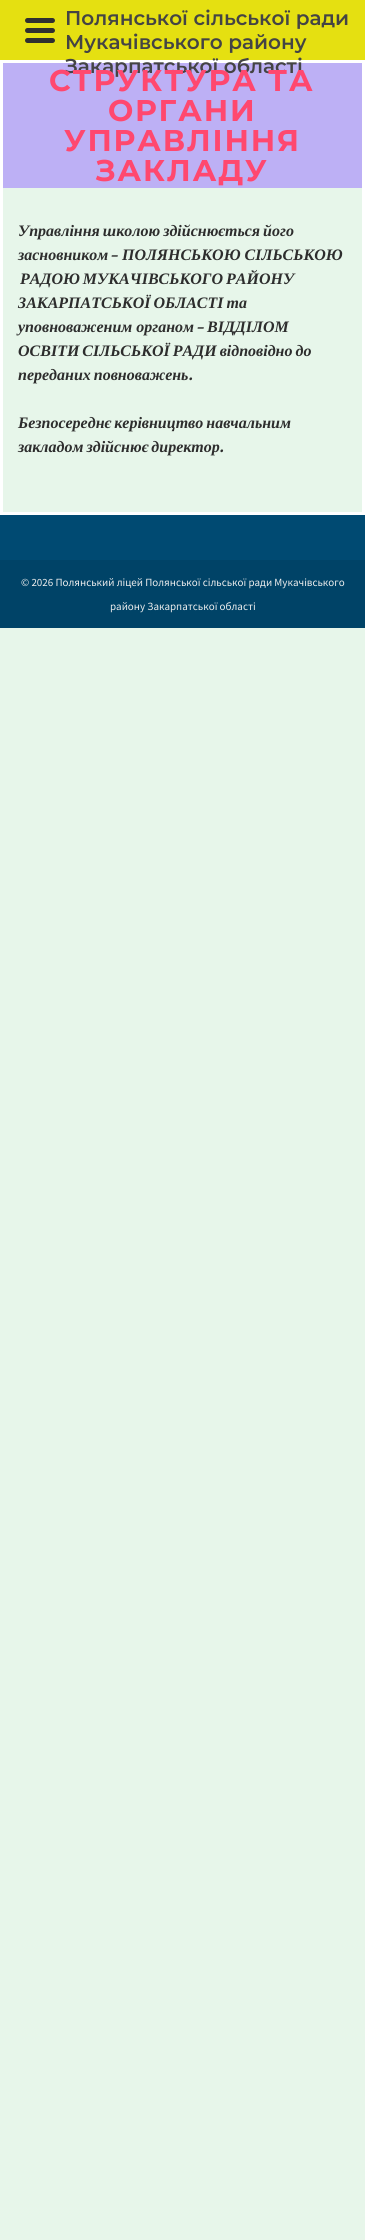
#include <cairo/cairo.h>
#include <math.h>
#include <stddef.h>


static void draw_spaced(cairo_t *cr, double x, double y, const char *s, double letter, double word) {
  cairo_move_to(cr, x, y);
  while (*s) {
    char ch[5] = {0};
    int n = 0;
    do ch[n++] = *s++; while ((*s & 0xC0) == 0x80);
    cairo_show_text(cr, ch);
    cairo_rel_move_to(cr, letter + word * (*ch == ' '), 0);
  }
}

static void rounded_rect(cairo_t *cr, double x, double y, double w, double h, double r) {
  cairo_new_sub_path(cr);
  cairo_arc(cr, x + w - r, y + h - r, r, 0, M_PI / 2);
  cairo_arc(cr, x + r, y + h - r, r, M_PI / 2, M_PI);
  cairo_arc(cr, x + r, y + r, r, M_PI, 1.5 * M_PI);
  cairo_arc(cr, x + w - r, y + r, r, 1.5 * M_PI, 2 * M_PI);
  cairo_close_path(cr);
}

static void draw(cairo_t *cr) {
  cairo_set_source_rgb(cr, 231 / 255.0, 246 / 255.0, 234 / 255.0);
  cairo_paint(cr);
  cairo_set_source_rgb(cr, 229 / 255.0, 224 / 255.0, 17 / 255.0);
  cairo_rectangle(cr, 0, 0, 365, 60);
  cairo_fill(cr);
  cairo_set_source_rgb(cr, 48 / 255.0, 48 / 255.0, 48 / 255.0);
  rounded_rect(cr, 25, 18, 30, 5, 2.5);
  cairo_fill(cr);
  rounded_rect(cr, 25, 28, 30, 5, 2.5);
  cairo_fill(cr);
  rounded_rect(cr, 25, 38, 30, 5, 2.5);
  cairo_fill(cr);
  cairo_rectangle(cr, 1.5, 61.5, 362, 452);
  cairo_set_source_rgb(cr, 1, 1, 1);
  cairo_set_line_width(cr, 3);
  cairo_stroke(cr);
  cairo_set_source_rgb(cr, 189 / 255.0, 176 / 255.0, 245 / 255.0);
  cairo_rectangle(cr, 3, 63, 359, 125);
  cairo_fill(cr);
  cairo_set_source_rgb(cr, 0, 74 / 255.0, 114 / 255.0);
  cairo_rectangle(cr, 0, 515, 365, 45);
  cairo_fill(cr);
  cairo_set_source_rgb(cr, 0, 67 / 255.0, 103 / 255.0);
  cairo_rectangle(cr, 0, 560, 365, 68);
  cairo_fill(cr);
  cairo_select_font_face(cr, "Montserrat SemiBold", CAIRO_FONT_SLANT_NORMAL, CAIRO_FONT_WEIGHT_NORMAL);
  cairo_set_font_size(cr, 20);
  cairo_set_source_rgb(cr, 68 / 255.0, 68 / 255.0, 68 / 255.0);
  cairo_move_to(cr, 65, 25);
  cairo_show_text(cr, "Полянської сільської ради");
  cairo_move_to(cr, 65, 49);
  cairo_show_text(cr, "Мукачівського району");
  cairo_move_to(cr, 65, 73);
  cairo_show_text(cr, "Закарпатської області");
  cairo_select_font_face(cr, "Montserrat", CAIRO_FONT_SLANT_NORMAL, CAIRO_FONT_WEIGHT_BOLD);
  cairo_set_font_size(cr, 30);
  cairo_set_source_rgb(cr, 1, 72 / 255.0, 111 / 255.0);
  draw_spaced(cr, 49, 91, "СТРУКТУРА ТА", 1.75, 0);
  draw_spaced(cr, 108, 121, "ОРГАНИ", 1.75, 0);
  draw_spaced(cr, 64, 151, "УПРАВЛІННЯ", 1.75, 0);
  draw_spaced(cr, 96, 181, "ЗАКЛАДУ", 1.75, 0);
  cairo_select_font_face(cr, "Liberation Serif", CAIRO_FONT_SLANT_ITALIC, CAIRO_FONT_WEIGHT_BOLD);
  cairo_set_font_size(cr, 16);
  cairo_set_source_rgb(cr, 45 / 255.0, 45 / 255.0, 45 / 255.0);
  draw_spaced(cr, 18, 236, "Управління школою здійснюється його", 0, -1);
  cairo_move_to(cr, 18, 260);
  cairo_show_text(cr, "засновником");
  cairo_select_font_face(cr, "Source Sans Pro", CAIRO_FONT_SLANT_ITALIC, CAIRO_FONT_WEIGHT_BOLD);
  cairo_move_to(cr, 111, 260);
  cairo_show_text(cr, "–");
  cairo_select_font_face(cr, "Liberation Serif", CAIRO_FONT_SLANT_ITALIC, CAIRO_FONT_WEIGHT_BOLD);
  cairo_move_to(cr, 122, 260);
  cairo_show_text(cr, "ПОЛЯНСЬКОЮ СІЛЬСЬКОЮ");
  draw_spaced(cr, 20, 284, "РАДОЮ МУКАЧІВСЬКОГО РАЙОНУ", 0, -1);
  draw_spaced(cr, 18, 308, "ЗАКАРПАТСЬКОЇ ОБЛАСТІ та", 0, -1);
  cairo_move_to(cr, 18, 332);
  cairo_show_text(cr, "уповноваженим органом");
  cairo_select_font_face(cr, "Source Sans Pro", CAIRO_FONT_SLANT_ITALIC, CAIRO_FONT_WEIGHT_BOLD);
  cairo_move_to(cr, 197, 332);
  cairo_show_text(cr, "–");
  cairo_select_font_face(cr, "Liberation Serif", CAIRO_FONT_SLANT_ITALIC, CAIRO_FONT_WEIGHT_BOLD);
  cairo_move_to(cr, 207, 332);
  cairo_show_text(cr, "ВІДДІЛОМ");
  draw_spaced(cr, 18, 356, "ОСВІТИ СІЛЬСЬКОЇ РАДИ відповідно до", 0, -1);
  draw_spaced(cr, 18, 380, "переданих повноважень", 0, -1);
  cairo_select_font_face(cr, "Source Sans Pro", CAIRO_FONT_SLANT_ITALIC, CAIRO_FONT_WEIGHT_BOLD);
  cairo_move_to(cr, 189, 380);
  cairo_show_text(cr, ".");
  cairo_select_font_face(cr, "Liberation Serif", CAIRO_FONT_SLANT_ITALIC, CAIRO_FONT_WEIGHT_BOLD);
  draw_spaced(cr, 18, 428, "Безпосереднє керівництво навчальним", 0, -1);
  draw_spaced(cr, 18, 452, "закладом здійснює директор", 0, -1);
  cairo_select_font_face(cr, "Source Sans Pro", CAIRO_FONT_SLANT_ITALIC, CAIRO_FONT_WEIGHT_BOLD);
  cairo_move_to(cr, 220, 452);
  cairo_show_text(cr, ".");
  cairo_select_font_face(cr, "Source Sans Pro", CAIRO_FONT_SLANT_NORMAL, CAIRO_FONT_WEIGHT_NORMAL);
  cairo_set_font_size(cr, 11);
  cairo_set_source_rgb(cr, 238 / 255.0, 238 / 255.0, 238 / 255.0);
  cairo_move_to(cr, 21, 586);
  cairo_show_text(cr, "© 2026 Полянський ліцей Полянської сільської ради Мукачівського");
  cairo_move_to(cr, 110, 610);
  cairo_show_text(cr, "району Закарпатської області");
}

int main(void) {
  cairo_surface_t *surface = cairo_image_surface_create(CAIRO_FORMAT_RGB24, 365, 2240);
  cairo_t *cr = cairo_create(surface);
  cairo_font_options_t *options = cairo_font_options_create();
  cairo_font_options_set_hint_metrics(options, CAIRO_HINT_METRICS_OFF);
  cairo_font_options_set_hint_style(options, CAIRO_HINT_STYLE_NONE);
  cairo_set_font_options(cr, options);
  cairo_set_miter_limit(cr, 4);
  draw(cr);
  cairo_surface_write_to_png(surface, "out.png");
  cairo_font_options_destroy(options);
  cairo_destroy(cr);
  cairo_surface_destroy(surface);
  return 0;
}
